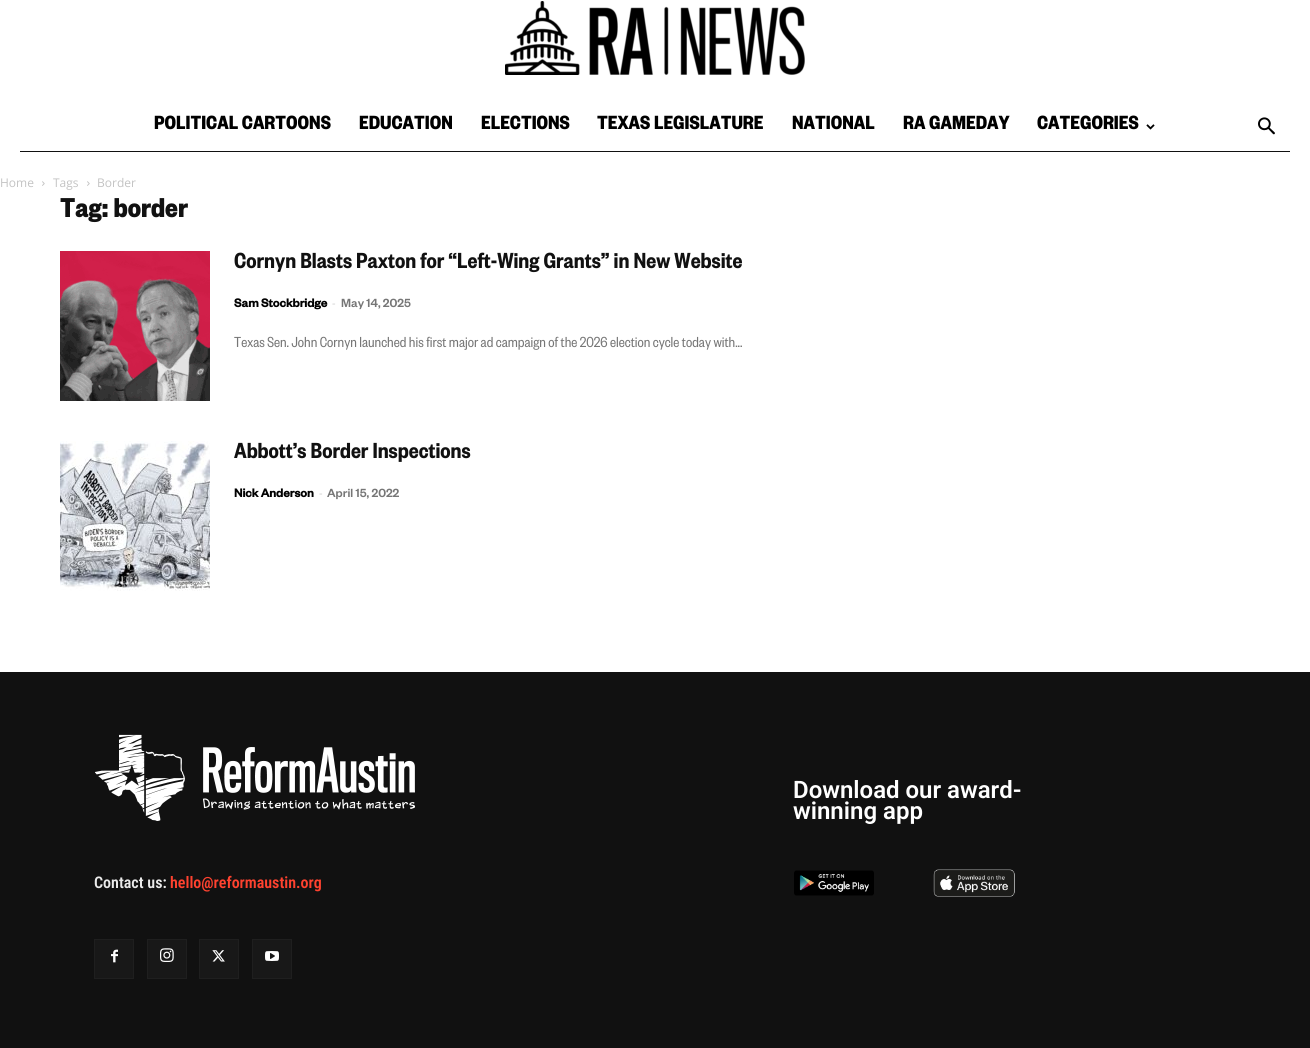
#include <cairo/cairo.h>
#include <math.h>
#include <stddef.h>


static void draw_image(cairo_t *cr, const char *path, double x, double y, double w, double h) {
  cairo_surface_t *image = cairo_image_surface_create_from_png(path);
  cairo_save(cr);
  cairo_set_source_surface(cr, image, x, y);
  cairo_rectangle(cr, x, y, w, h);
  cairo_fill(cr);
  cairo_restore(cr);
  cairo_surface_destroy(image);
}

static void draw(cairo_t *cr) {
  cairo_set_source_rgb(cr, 1, 1, 1);
  cairo_paint(cr);
  draw_image(cr, "images/1.png", 505, 1, 300, 74);
  cairo_set_source_rgb(cr, 17 / 255.0, 17 / 255.0, 17 / 255.0);
  cairo_rectangle(cr, 20, 151, 1270, 1);
  cairo_fill(cr);
  draw_image(cr, "images/2.png", 1146, 124, 9, 6);
  draw_image(cr, "images/3.png", 1258, 117, 17, 18);
  draw_image(cr, "images/4.png", 42, 181, 3, 5);
  draw_image(cr, "images/4.png", 87, 181, 3, 5);
  draw_image(cr, "images/5.png", 60, 251, 150, 150);
  draw_image(cr, "images/6.png", 60, 441, 150, 150);
  cairo_rectangle(cr, 0, 672, 1310, 376);
  cairo_fill(cr);
  draw_image(cr, "images/7.png", 95, 734, 320, 87);
  cairo_set_source_rgb(cr, 24 / 255.0, 24 / 255.0, 24 / 255.0);
  cairo_rectangle(cr, 95, 940, 38, 38);
  cairo_fill(cr);
  draw_image(cr, "images/8.png", 111, 949, 7, 14);
  cairo_rectangle(cr, 94.5, 939.5, 39, 39);
  cairo_set_source_rgb(cr, 31 / 255.0, 31 / 255.0, 31 / 255.0);
  cairo_set_line_width(cr, 1);
  cairo_stroke(cr);
  cairo_set_source_rgb(cr, 24 / 255.0, 24 / 255.0, 24 / 255.0);
  cairo_rectangle(cr, 148, 940, 38, 38);
  cairo_fill(cr);
  draw_image(cr, "images/9.png", 160, 948, 14, 14);
  cairo_rectangle(cr, 147.5, 939.5, 39, 39);
  cairo_set_source_rgb(cr, 31 / 255.0, 31 / 255.0, 31 / 255.0);
  cairo_stroke(cr);
  cairo_set_source_rgb(cr, 24 / 255.0, 24 / 255.0, 24 / 255.0);
  cairo_rectangle(cr, 200, 940, 38, 38);
  cairo_fill(cr);
  draw_image(cr, "images/10.png", 212, 950, 13, 12);
  cairo_rectangle(cr, 199.5, 939.5, 39, 39);
  cairo_set_source_rgb(cr, 31 / 255.0, 31 / 255.0, 31 / 255.0);
  cairo_stroke(cr);
  cairo_set_source_rgb(cr, 24 / 255.0, 24 / 255.0, 24 / 255.0);
  cairo_rectangle(cr, 253, 940, 38, 38);
  cairo_fill(cr);
  draw_image(cr, "images/11.png", 265, 951, 14, 10);
  cairo_rectangle(cr, 252.5, 939.5, 39, 39);
  cairo_set_source_rgb(cr, 31 / 255.0, 31 / 255.0, 31 / 255.0);
  cairo_stroke(cr);
  draw_image(cr, "images/12.png", 794, 870, 80, 26);
  draw_image(cr, "images/13.png", 933, 869, 82, 28);
  cairo_select_font_face(cr, "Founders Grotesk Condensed", CAIRO_FONT_SLANT_NORMAL, CAIRO_FONT_WEIGHT_BOLD);
  cairo_set_font_size(cr, 21);
  cairo_set_source_rgb(cr, 0, 0, 0);
  cairo_move_to(cr, 154, 129);
  cairo_show_text(cr, "POLITICAL CARTOONS");
  cairo_move_to(cr, 359, 129);
  cairo_show_text(cr, "EDUCATION");
  cairo_move_to(cr, 481, 129);
  cairo_show_text(cr, "ELECTIONS");
  cairo_move_to(cr, 597, 129);
  cairo_show_text(cr, "TEXAS LEGISLATURE");
  cairo_move_to(cr, 792, 129);
  cairo_show_text(cr, "NATIONAL");
  cairo_move_to(cr, 903, 129);
  cairo_show_text(cr, "RA GAMEDAY");
  cairo_move_to(cr, 1037, 129);
  cairo_show_text(cr, "CATEGORIES");
  cairo_select_font_face(cr, "Open Sans", CAIRO_FONT_SLANT_NORMAL, CAIRO_FONT_WEIGHT_NORMAL);
  cairo_set_font_size(cr, 12);
  cairo_set_source_rgb(cr, 195 / 255.0, 195 / 255.0, 195 / 255.0);
  cairo_move_to(cr, 0, 187);
  cairo_show_text(cr, "Home");
  cairo_move_to(cr, 53, 187);
  cairo_show_text(cr, "Tags");
  cairo_move_to(cr, 97, 187);
  cairo_show_text(cr, "Border");
  cairo_select_font_face(cr, "Founders Grotesk Condensed", CAIRO_FONT_SLANT_NORMAL, CAIRO_FONT_WEIGHT_BOLD);
  cairo_set_font_size(cr, 30);
  cairo_set_source_rgb(cr, 17 / 255.0, 17 / 255.0, 17 / 255.0);
  cairo_move_to(cr, 60, 217);
  cairo_show_text(cr, "Tag: border");
  cairo_select_font_face(cr, "Founders Grotesk Condensed SemiBold", CAIRO_FONT_SLANT_NORMAL, CAIRO_FONT_WEIGHT_NORMAL);
  cairo_set_font_size(cr, 24);
  cairo_move_to(cr, 234, 268);
  cairo_show_text(cr, "Cornyn Blasts Paxton for “Left-Wing Grants” in New Website");
  cairo_select_font_face(cr, "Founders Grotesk", CAIRO_FONT_SLANT_NORMAL, CAIRO_FONT_WEIGHT_BOLD);
  cairo_set_font_size(cr, 13);
  cairo_set_source_rgb(cr, 0, 0, 0);
  cairo_move_to(cr, 234, 307);
  cairo_show_text(cr, "Sam Stockbridge");
  cairo_select_font_face(cr, "Open Sans", CAIRO_FONT_SLANT_NORMAL, CAIRO_FONT_WEIGHT_NORMAL);
  cairo_set_font_size(cr, 11);
  cairo_set_source_rgb(cr, 204 / 255.0, 204 / 255.0, 204 / 255.0);
  cairo_move_to(cr, 332, 307);
  cairo_show_text(cr, "-");
  cairo_select_font_face(cr, "Founders Grotesk Medium", CAIRO_FONT_SLANT_NORMAL, CAIRO_FONT_WEIGHT_NORMAL);
  cairo_set_font_size(cr, 13);
  cairo_set_source_rgb(cr, 118 / 255.0, 118 / 255.0, 118 / 255.0);
  cairo_move_to(cr, 341, 307);
  cairo_show_text(cr, "May 14, 2025");
  cairo_select_font_face(cr, "Founders Grotesk Condensed", CAIRO_FONT_SLANT_NORMAL, CAIRO_FONT_WEIGHT_NORMAL);
  cairo_set_font_size(cr, 16);
  cairo_move_to(cr, 234, 347);
  cairo_show_text(cr, "Texas Sen. John Cornyn launched his first major ad campaign of the 2026 election cycle today with...");
  cairo_select_font_face(cr, "Founders Grotesk Condensed SemiBold", CAIRO_FONT_SLANT_NORMAL, CAIRO_FONT_WEIGHT_NORMAL);
  cairo_set_font_size(cr, 24);
  cairo_set_source_rgb(cr, 17 / 255.0, 17 / 255.0, 17 / 255.0);
  cairo_move_to(cr, 234, 458);
  cairo_show_text(cr, "Abbott’s Border Inspections");
  cairo_select_font_face(cr, "Founders Grotesk", CAIRO_FONT_SLANT_NORMAL, CAIRO_FONT_WEIGHT_BOLD);
  cairo_set_font_size(cr, 13);
  cairo_set_source_rgb(cr, 0, 0, 0);
  cairo_move_to(cr, 234, 497);
  cairo_show_text(cr, "Nick Anderson");
  cairo_select_font_face(cr, "Open Sans", CAIRO_FONT_SLANT_NORMAL, CAIRO_FONT_WEIGHT_NORMAL);
  cairo_set_font_size(cr, 11);
  cairo_set_source_rgb(cr, 204 / 255.0, 204 / 255.0, 204 / 255.0);
  cairo_move_to(cr, 319, 497);
  cairo_show_text(cr, "-");
  cairo_select_font_face(cr, "Founders Grotesk Medium", CAIRO_FONT_SLANT_NORMAL, CAIRO_FONT_WEIGHT_NORMAL);
  cairo_set_font_size(cr, 13);
  cairo_set_source_rgb(cr, 118 / 255.0, 118 / 255.0, 118 / 255.0);
  cairo_move_to(cr, 327, 497);
  cairo_show_text(cr, "April 15, 2022");
  cairo_select_font_face(cr, "Roboto Condensed SemiBold", CAIRO_FONT_SLANT_NORMAL, CAIRO_FONT_WEIGHT_NORMAL);
  cairo_set_font_size(cr, 16);
  cairo_set_source_rgb(cr, 234 / 255.0, 234 / 255.0, 234 / 255.0);
  cairo_move_to(cr, 94, 888);
  cairo_show_text(cr, "Contact us:");
  cairo_set_source_rgb(cr, 1, 66 / 255.0, 47 / 255.0);
  cairo_move_to(cr, 170, 888);
  cairo_show_text(cr, "hello@reformaustin.org");
  cairo_select_font_face(cr, "Roboto SemiBold", CAIRO_FONT_SLANT_NORMAL, CAIRO_FONT_WEIGHT_NORMAL);
  cairo_set_font_size(cr, 24);
  cairo_set_source_rgb(cr, 1, 1, 1);
  cairo_move_to(cr, 793, 798);
  cairo_show_text(cr, "Download our award-");
  cairo_move_to(cr, 793, 819);
  cairo_show_text(cr, "winning app");
}

int main(void) {
  cairo_surface_t *surface = cairo_image_surface_create(CAIRO_FORMAT_RGB24, 1310, 1048);
  cairo_t *cr = cairo_create(surface);
  cairo_font_options_t *options = cairo_font_options_create();
  cairo_font_options_set_hint_metrics(options, CAIRO_HINT_METRICS_OFF);
  cairo_font_options_set_hint_style(options, CAIRO_HINT_STYLE_NONE);
  cairo_set_font_options(cr, options);
  cairo_set_miter_limit(cr, 4);
  draw(cr);
  cairo_surface_write_to_png(surface, "out.png");
  cairo_font_options_destroy(options);
  cairo_destroy(cr);
  cairo_surface_destroy(surface);
  return 0;
}
